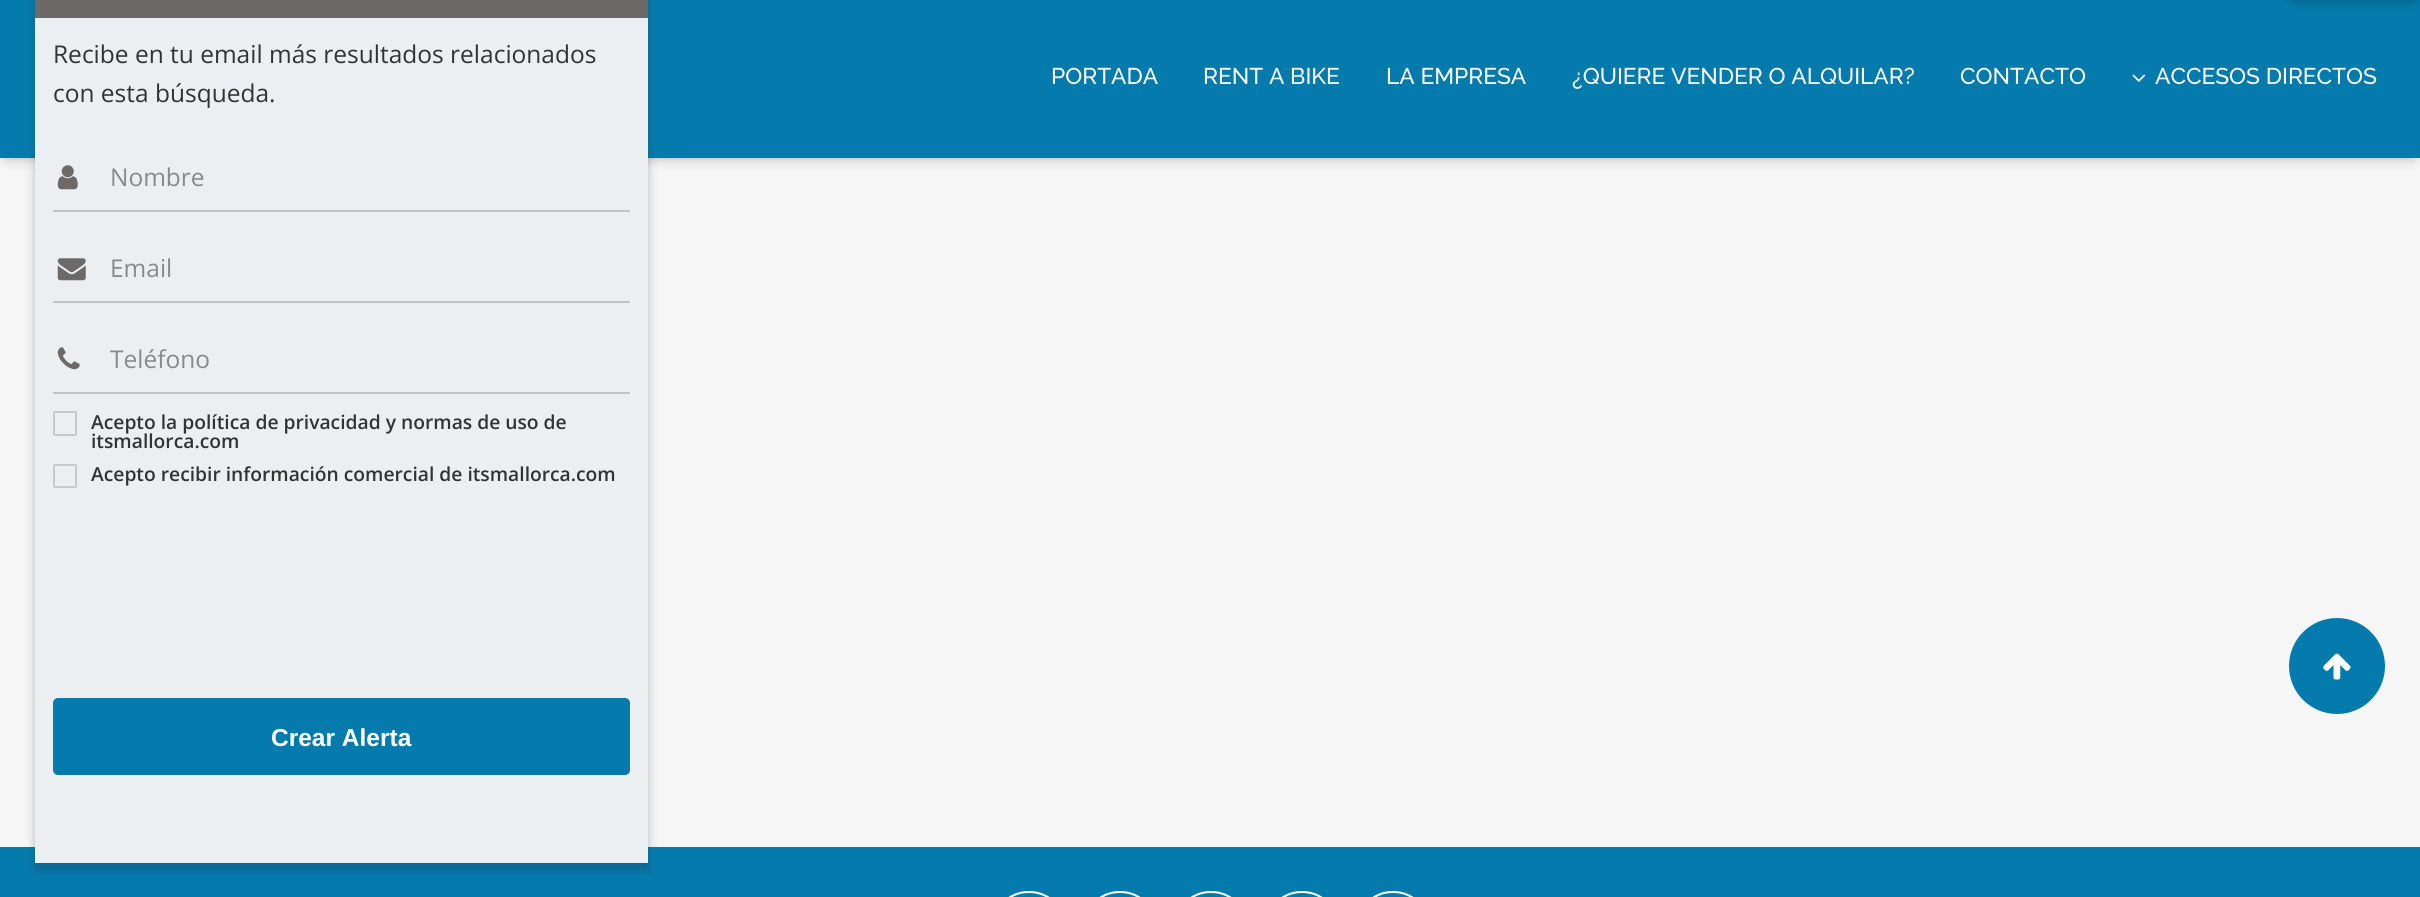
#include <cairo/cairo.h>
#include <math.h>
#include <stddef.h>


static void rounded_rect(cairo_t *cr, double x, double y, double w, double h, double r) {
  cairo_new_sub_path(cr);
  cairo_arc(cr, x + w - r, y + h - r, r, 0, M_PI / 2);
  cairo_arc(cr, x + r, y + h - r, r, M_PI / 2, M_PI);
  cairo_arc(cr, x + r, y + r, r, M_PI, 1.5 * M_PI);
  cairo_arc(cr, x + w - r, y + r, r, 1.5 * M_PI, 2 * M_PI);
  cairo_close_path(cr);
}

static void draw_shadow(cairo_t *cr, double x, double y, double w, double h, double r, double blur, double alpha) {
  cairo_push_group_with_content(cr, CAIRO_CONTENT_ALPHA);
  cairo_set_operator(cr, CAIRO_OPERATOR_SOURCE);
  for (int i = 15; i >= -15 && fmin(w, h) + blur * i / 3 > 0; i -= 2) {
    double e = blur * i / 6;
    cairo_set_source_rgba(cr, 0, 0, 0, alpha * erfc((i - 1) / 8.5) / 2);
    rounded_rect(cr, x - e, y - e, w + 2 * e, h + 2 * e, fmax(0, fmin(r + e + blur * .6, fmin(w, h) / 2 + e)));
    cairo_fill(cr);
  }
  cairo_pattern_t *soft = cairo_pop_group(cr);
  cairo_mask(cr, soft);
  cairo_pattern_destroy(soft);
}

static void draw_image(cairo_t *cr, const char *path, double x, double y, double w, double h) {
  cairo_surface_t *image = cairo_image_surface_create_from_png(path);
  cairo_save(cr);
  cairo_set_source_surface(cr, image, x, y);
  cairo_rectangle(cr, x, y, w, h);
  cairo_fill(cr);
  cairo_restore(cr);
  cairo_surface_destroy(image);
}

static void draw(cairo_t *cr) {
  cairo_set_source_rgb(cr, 246 / 255.0, 246 / 255.0, 246 / 255.0);
  cairo_paint(cr);
  cairo_set_source_rgb(cr, 0, 0, 0);
  draw_shadow(cr, 7, 12, 2406, 144, 0, 7, 0.38);
  cairo_set_source_rgb(cr, 5 / 255.0, 123 / 255.0, 173 / 255.0);
  cairo_rectangle(cr, 0, 0, 2420, 158);
  cairo_fill(cr);
  cairo_rectangle(cr, 0, 847, 2420, 50);
  cairo_fill(cr);
  cairo_set_source_rgb(cr, 35 / 255.0, 50 / 255.0, 56 / 255.0);
  draw_shadow(cr, 35, -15, 613, 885, 0, 5, 0.3);
  cairo_set_source_rgb(cr, 236 / 255.0, 239 / 255.0, 241 / 255.0);
  cairo_rectangle(cr, 35, 18, 613, 845);
  cairo_fill(cr);
  cairo_set_source_rgb(cr, 109 / 255.0, 105 / 255.0, 105 / 255.0);
  cairo_rectangle(cr, 35, 0, 613, 18);
  cairo_fill(cr);
  draw_image(cr, "images/1.png", 57, 165, 21, 25);
  cairo_set_source_rgb(cr, 194 / 255.0, 194 / 255.0, 194 / 255.0);
  cairo_rectangle(cr, 53, 210, 577, 2);
  cairo_fill(cr);
  draw_image(cr, "images/2.png", 57, 258, 29, 23);
  cairo_rectangle(cr, 53, 301, 577, 2);
  cairo_fill(cr);
  draw_image(cr, "images/3.png", 57, 347, 23, 23);
  cairo_rectangle(cr, 53, 392, 577, 2);
  cairo_fill(cr);
  rounded_rect(cr, 54, 412, 22, 23, 1);
  cairo_set_source_rgb(cr, 201 / 255.0, 201 / 255.0, 201 / 255.0);
  cairo_stroke(cr);
  rounded_rect(cr, 54, 465, 22, 22, 1);
  cairo_stroke(cr);
  cairo_set_source_rgb(cr, 5 / 255.0, 123 / 255.0, 173 / 255.0);
  rounded_rect(cr, 53, 698, 577, 77, 5);
  cairo_fill(cr);
  cairo_set_source_rgb(cr, 0, 0, 0);
  draw_shadow(cr, 2293, -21, 120, 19, 0, 7, 0.38);
  draw_image(cr, "images/4.png", 2132, 74, 14, 8);
  cairo_set_source_rgb(cr, 5 / 255.0, 123 / 255.0, 173 / 255.0);
  cairo_arc(cr, 2337, 666, 48, 0, 2 * M_PI);
  cairo_fill(cr);
  draw_image(cr, "images/5.png", 2323, 653, 28, 27);
  rounded_rect(cr, 993, 892, 72, 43, 35.5);
  cairo_set_source_rgb(cr, 1, 1, 1);
  cairo_stroke(cr);
  rounded_rect(cr, 1084, 892, 72, 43, 35.5);
  cairo_stroke(cr);
  rounded_rect(cr, 1175, 892, 72, 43, 35.5);
  cairo_stroke(cr);
  rounded_rect(cr, 1266, 892, 72, 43, 35.5);
  cairo_stroke(cr);
  rounded_rect(cr, 1357, 892, 72, 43, 35.5);
  cairo_stroke(cr);
  cairo_select_font_face(cr, "Open Sans", CAIRO_FONT_SLANT_NORMAL, CAIRO_FONT_WEIGHT_NORMAL);
  cairo_set_font_size(cr, 24.5);
  cairo_set_source_rgb(cr, 51 / 255.0, 51 / 255.0, 51 / 255.0);
  cairo_move_to(cr, 53, 63);
  cairo_show_text(cr, "Recibe en tu email más resultados relacionados");
  cairo_move_to(cr, 53, 102);
  cairo_show_text(cr, "con esta búsqueda.");
  cairo_set_source_rgb(cr, 138 / 255.0, 137 / 255.0, 137 / 255.0);
  cairo_move_to(cr, 110, 186);
  cairo_show_text(cr, "Nombre");
  cairo_move_to(cr, 110, 277);
  cairo_show_text(cr, "Email");
  cairo_move_to(cr, 110, 368);
  cairo_show_text(cr, "Teléfono");
  cairo_select_font_face(cr, "Open Sans SemiBold", CAIRO_FONT_SLANT_NORMAL, CAIRO_FONT_WEIGHT_NORMAL);
  cairo_set_font_size(cr, 19.25);
  cairo_set_source_rgb(cr, 51 / 255.0, 51 / 255.0, 51 / 255.0);
  cairo_move_to(cr, 91, 429);
  cairo_show_text(cr, "Acepto la política de privacidad y normas de uso de");
  cairo_move_to(cr, 91, 448);
  cairo_show_text(cr, "itsmallorca.com");
  cairo_move_to(cr, 91, 481);
  cairo_show_text(cr, "Acepto recibir información comercial de itsmallorca.com");
  cairo_select_font_face(cr, "Liberation Sans", CAIRO_FONT_SLANT_NORMAL, CAIRO_FONT_WEIGHT_BOLD);
  cairo_set_font_size(cr, 24.5);
  cairo_set_source_rgb(cr, 1, 1, 1);
  cairo_move_to(cr, 271, 746);
  cairo_show_text(cr, "Crear Alerta");
  cairo_select_font_face(cr, "Raleway Medium", CAIRO_FONT_SLANT_NORMAL, CAIRO_FONT_WEIGHT_NORMAL);
  cairo_set_font_size(cr, 22.75);
  cairo_move_to(cr, 1051, 84);
  cairo_show_text(cr, "PORTADA");
  cairo_move_to(cr, 1203, 84);
  cairo_show_text(cr, "RENT A BIKE");
  cairo_move_to(cr, 1386, 84);
  cairo_show_text(cr, "LA EMPRESA");
  cairo_move_to(cr, 1572, 84);
  cairo_show_text(cr, "¿QUIERE VENDER O ALQUILAR?");
  cairo_move_to(cr, 1960, 84);
  cairo_show_text(cr, "CONTACTO");
  cairo_move_to(cr, 2155, 84);
  cairo_show_text(cr, "ACCESOS DIRECTOS");
}

int main(void) {
  cairo_surface_t *surface = cairo_image_surface_create(CAIRO_FORMAT_RGB24, 2420, 897);
  cairo_t *cr = cairo_create(surface);
  cairo_font_options_t *options = cairo_font_options_create();
  cairo_font_options_set_hint_metrics(options, CAIRO_HINT_METRICS_OFF);
  cairo_font_options_set_hint_style(options, CAIRO_HINT_STYLE_NONE);
  cairo_set_font_options(cr, options);
  cairo_set_miter_limit(cr, 4);
  draw(cr);
  cairo_surface_write_to_png(surface, "out.png");
  cairo_font_options_destroy(options);
  cairo_destroy(cr);
  cairo_surface_destroy(surface);
  return 0;
}
